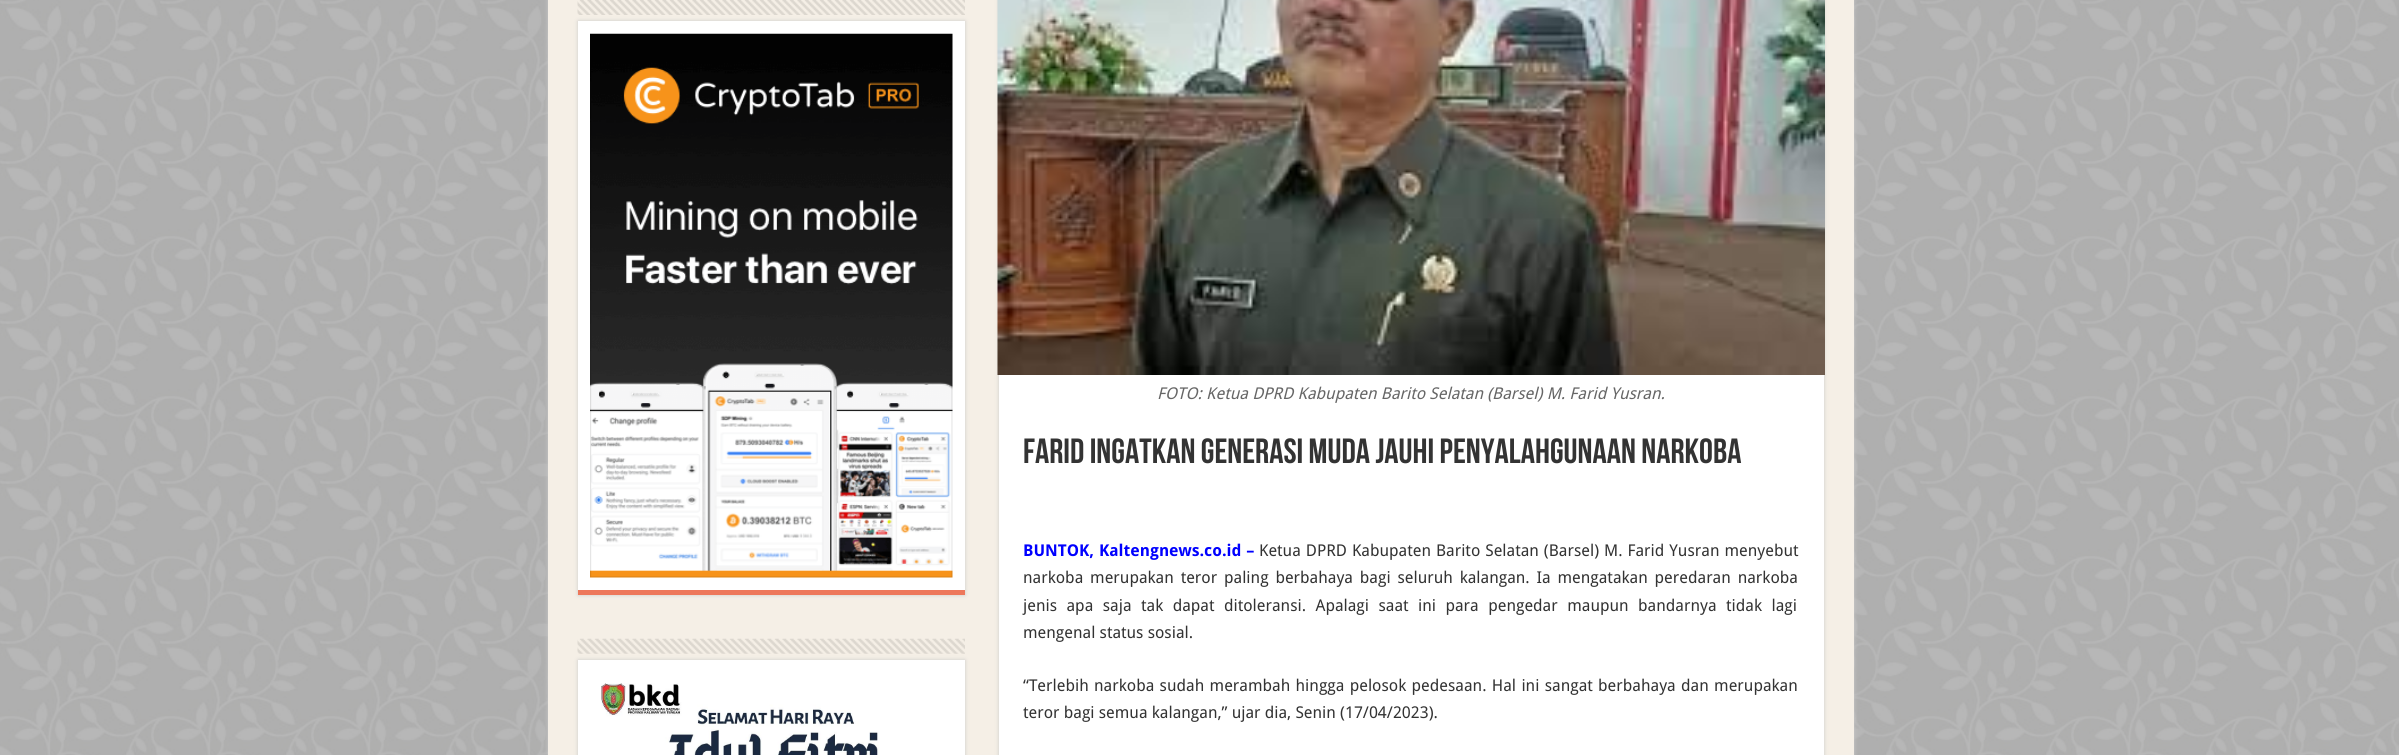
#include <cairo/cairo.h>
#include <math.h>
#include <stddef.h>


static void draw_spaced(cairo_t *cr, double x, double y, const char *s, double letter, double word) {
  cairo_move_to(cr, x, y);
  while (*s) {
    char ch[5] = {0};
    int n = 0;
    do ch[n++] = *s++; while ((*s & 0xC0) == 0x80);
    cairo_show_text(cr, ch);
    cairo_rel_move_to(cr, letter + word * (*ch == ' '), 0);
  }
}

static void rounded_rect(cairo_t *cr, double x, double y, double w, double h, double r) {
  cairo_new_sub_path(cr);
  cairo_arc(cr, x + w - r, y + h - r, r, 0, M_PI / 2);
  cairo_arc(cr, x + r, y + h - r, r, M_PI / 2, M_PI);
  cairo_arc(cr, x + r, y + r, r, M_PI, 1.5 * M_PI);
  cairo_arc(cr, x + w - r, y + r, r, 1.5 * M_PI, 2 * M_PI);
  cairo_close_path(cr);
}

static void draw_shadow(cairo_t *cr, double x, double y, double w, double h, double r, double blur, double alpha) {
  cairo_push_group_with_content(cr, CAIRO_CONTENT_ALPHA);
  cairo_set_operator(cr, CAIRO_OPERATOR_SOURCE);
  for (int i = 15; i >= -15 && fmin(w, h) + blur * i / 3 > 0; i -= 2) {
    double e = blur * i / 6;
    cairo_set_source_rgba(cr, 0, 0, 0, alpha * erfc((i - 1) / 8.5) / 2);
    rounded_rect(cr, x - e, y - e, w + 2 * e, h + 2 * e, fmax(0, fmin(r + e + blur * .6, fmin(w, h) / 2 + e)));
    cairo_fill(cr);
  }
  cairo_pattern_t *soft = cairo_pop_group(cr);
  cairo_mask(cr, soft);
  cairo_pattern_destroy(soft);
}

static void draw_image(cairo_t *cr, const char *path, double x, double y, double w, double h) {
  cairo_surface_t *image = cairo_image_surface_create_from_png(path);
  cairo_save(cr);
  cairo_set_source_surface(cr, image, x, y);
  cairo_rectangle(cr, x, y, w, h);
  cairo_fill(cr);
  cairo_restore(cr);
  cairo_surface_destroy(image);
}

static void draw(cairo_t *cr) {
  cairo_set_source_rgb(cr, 163 / 255.0, 163 / 255.0, 163 / 255.0);
  cairo_paint(cr);
  draw_image(cr, "images/1.png", 0, 0, 2399, 755);
  cairo_set_source_rgb(cr, 202 / 255.0, 202 / 255.0, 202 / 255.0);
  draw_shadow(cr, 548, -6, 1306, 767, 0, 2, 1);
  cairo_set_source_rgb(cr, 245 / 255.0, 239 / 255.0, 230 / 255.0);
  cairo_rectangle(cr, 548, 0, 1306, 755);
  cairo_fill(cr);
  cairo_set_source_rgb(cr, 202 / 255.0, 202 / 255.0, 202 / 255.0);
  draw_shadow(cr, 578, 21, 387, 574, 0, 2, 1);
  draw_image(cr, "images/2.png", 577, 0, 388, 15);
  cairo_set_source_rgb(cr, 1, 1, 1);
  cairo_rectangle(cr, 578, 21, 387, 569);
  cairo_fill(cr);
  cairo_set_source_rgb(cr, 237 / 255.0, 119 / 255.0, 90 / 255.0);
  cairo_rectangle(cr, 578, 590, 387, 5);
  cairo_fill(cr);
  draw_image(cr, "images/3.png", 590, 33, 363, 545);
  cairo_set_source_rgb(cr, 202 / 255.0, 202 / 255.0, 202 / 255.0);
  draw_shadow(cr, 578, 660, 387, 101, 0, 2, 1);
  draw_image(cr, "images/4.png", 577, 638, 388, 16);
  cairo_set_source_rgb(cr, 1, 1, 1);
  cairo_rectangle(cr, 578, 660, 387, 95);
  cairo_fill(cr);
  draw_image(cr, "images/5.png", 601, 683, 278, 72);
  cairo_set_source_rgb(cr, 202 / 255.0, 202 / 255.0, 202 / 255.0);
  draw_shadow(cr, 999, -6, 825, 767, 0, 2, 1);
  cairo_set_source_rgb(cr, 1, 1, 1);
  cairo_rectangle(cr, 999, 375, 825, 380);
  cairo_fill(cr);
  draw_image(cr, "images/6.png", 997, 0, 828, 375);
  cairo_select_font_face(cr, "Droid Sans", CAIRO_FONT_SLANT_ITALIC, CAIRO_FONT_WEIGHT_NORMAL);
  cairo_set_font_size(cr, 16.25);
  cairo_set_source_rgb(cr, 102 / 255.0, 102 / 255.0, 102 / 255.0);
  cairo_move_to(cr, 1157, 399);
  cairo_show_text(cr, "FOTO: Ketua DPRD Kabupaten Barito Selatan (Barsel) M. Farid Yusran.");
  cairo_select_font_face(cr, "Bebas Neue", CAIRO_FONT_SLANT_NORMAL, CAIRO_FONT_WEIGHT_BOLD);
  cairo_set_font_size(cr, 35);
  cairo_set_source_rgb(cr, 51 / 255.0, 51 / 255.0, 51 / 255.0);
  cairo_move_to(cr, 1023, 463);
  cairo_show_text(cr, "Farid Ingatkan Generasi Muda Jauhi Penyalahgunaan Narkoba");
  cairo_select_font_face(cr, "Droid Sans", CAIRO_FONT_SLANT_NORMAL, CAIRO_FONT_WEIGHT_BOLD);
  cairo_set_font_size(cr, 16.25);
  cairo_set_source_rgb(cr, 0, 0, 1);
  draw_spaced(cr, 1023, 556, "BUNTOK, Kaltengnews.co.id –", 0, 0.75);
  cairo_select_font_face(cr, "Droid Sans", CAIRO_FONT_SLANT_NORMAL, CAIRO_FONT_WEIGHT_NORMAL);
  cairo_set_source_rgb(cr, 51 / 255.0, 51 / 255.0, 51 / 255.0);
  draw_spaced(cr, 1259, 556, "Ketua DPRD Kabupaten Barito Selatan (Barsel) M. Farid Yusran menyebut", 0, 0.75);
  draw_spaced(cr, 1023, 583, "narkoba merupakan teror paling berbahaya bagi seluruh kalangan. Ia mengatakan peredaran narkoba", 0, 2.6);
  draw_spaced(cr, 1023, 611, "jenis apa saja tak dapat ditoleransi. Apalagi saat ini para pengedar maupun bandarnya tidak lagi", 0, 5.25);
  cairo_move_to(cr, 1023, 638);
  cairo_show_text(cr, "mengenal status sosial.");
  draw_spaced(cr, 1023, 691, "“Terlebih narkoba sudah merambah hingga pelosok pedesaan. Hal ini sangat berbahaya dan merupakan", 0, 1.1);
  cairo_move_to(cr, 1023, 718);
  cairo_show_text(cr, "teror bagi semua kalangan,” ujar dia, Senin (17/04/2023).");
}

int main(void) {
  cairo_surface_t *surface = cairo_image_surface_create(CAIRO_FORMAT_RGB24, 2399, 755);
  cairo_t *cr = cairo_create(surface);
  cairo_font_options_t *options = cairo_font_options_create();
  cairo_font_options_set_hint_metrics(options, CAIRO_HINT_METRICS_OFF);
  cairo_font_options_set_hint_style(options, CAIRO_HINT_STYLE_NONE);
  cairo_set_font_options(cr, options);
  cairo_set_miter_limit(cr, 4);
  draw(cr);
  cairo_surface_write_to_png(surface, "out.png");
  cairo_font_options_destroy(options);
  cairo_destroy(cr);
  cairo_surface_destroy(surface);
  return 0;
}
